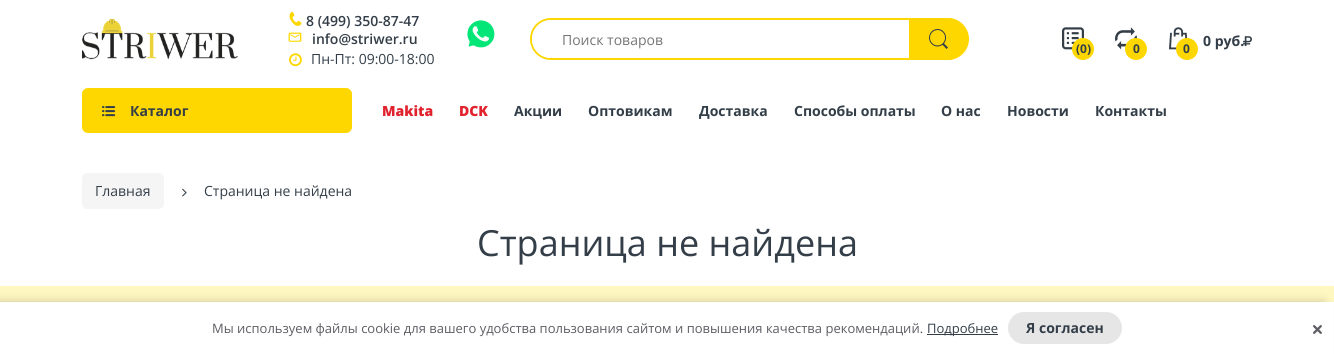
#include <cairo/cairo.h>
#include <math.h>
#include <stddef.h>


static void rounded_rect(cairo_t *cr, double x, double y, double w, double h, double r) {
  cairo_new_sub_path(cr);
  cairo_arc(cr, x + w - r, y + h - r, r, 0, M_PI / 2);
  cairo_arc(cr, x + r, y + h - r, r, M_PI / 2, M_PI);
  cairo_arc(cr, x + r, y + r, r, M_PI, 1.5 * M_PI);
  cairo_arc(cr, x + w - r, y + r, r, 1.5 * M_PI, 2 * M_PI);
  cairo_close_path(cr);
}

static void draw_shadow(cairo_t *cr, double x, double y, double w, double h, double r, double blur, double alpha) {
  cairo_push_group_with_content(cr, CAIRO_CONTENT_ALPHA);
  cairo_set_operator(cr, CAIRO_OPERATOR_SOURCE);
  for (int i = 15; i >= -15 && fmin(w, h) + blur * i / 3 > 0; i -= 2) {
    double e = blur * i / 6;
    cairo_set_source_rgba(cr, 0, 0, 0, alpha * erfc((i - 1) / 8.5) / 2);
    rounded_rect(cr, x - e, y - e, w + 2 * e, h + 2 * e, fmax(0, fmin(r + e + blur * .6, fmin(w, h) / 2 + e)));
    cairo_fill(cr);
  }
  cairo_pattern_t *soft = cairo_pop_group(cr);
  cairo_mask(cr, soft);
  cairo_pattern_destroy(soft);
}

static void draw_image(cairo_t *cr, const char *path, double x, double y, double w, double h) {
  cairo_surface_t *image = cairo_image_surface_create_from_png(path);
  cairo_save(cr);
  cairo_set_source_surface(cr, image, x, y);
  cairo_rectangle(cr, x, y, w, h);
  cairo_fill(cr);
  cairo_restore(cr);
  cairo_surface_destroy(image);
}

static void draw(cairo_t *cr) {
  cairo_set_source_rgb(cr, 1, 1, 1);
  cairo_paint(cr);
  draw_image(cr, "images/1.png", 82, 19, 156, 41);
  draw_image(cr, "images/2.png", 289, 11, 13, 15);
  draw_image(cr, "images/3.png", 467, 20, 28, 28);
  draw_image(cr, "images/4.png", 288, 32, 14, 10);
  draw_image(cr, "images/5.png", 289, 53, 13, 14);
  rounded_rect(cr, 531, 19, 436, 40, 20);
  cairo_set_source_rgb(cr, 254 / 255.0, 215 / 255.0, 0);
  cairo_stroke(cr);
  cairo_set_source_rgb(cr, 1, 1, 1);
  rounded_rect(cr, 532, 20, 434, 38, 19);
  cairo_fill(cr);
  cairo_set_source_rgb(cr, 254 / 255.0, 215 / 255.0, 0);
  cairo_new_path(cr);
  cairo_move_to(cr, 909, 18);
  cairo_line_to(cr, 948, 18);
  cairo_curve_to(cr, 959.5, 18, 969, 27.5, 969, 39);
  cairo_curve_to(cr, 969, 50.5, 959.5, 60, 948, 60);
  cairo_line_to(cr, 909, 60);
  cairo_close_path(cr);
  cairo_fill(cr);
  draw_image(cr, "images/6.png", 929, 29, 19, 20);
  draw_image(cr, "images/7.png", 1062, 27, 22, 23);
  cairo_arc(cr, 1083, 49, 11, 0, 2 * M_PI);
  cairo_fill(cr);
  draw_image(cr, "images/8.png", 1115, 27, 22, 23);
  cairo_arc(cr, 1136, 49, 11, 0, 2 * M_PI);
  cairo_fill(cr);
  draw_image(cr, "images/9.png", 1169, 27, 19, 23);
  cairo_arc(cr, 1187, 49, 11, 0, 2 * M_PI);
  cairo_fill(cr);
  rounded_rect(cr, 82, 88, 270, 45, 6);
  cairo_fill(cr);
  draw_image(cr, "images/11.png", 102, 106, 14, 11);
  cairo_set_source_rgb(cr, 245 / 255.0, 245 / 255.0, 245 / 255.0);
  rounded_rect(cr, 82, 173, 82, 36, 5);
  cairo_fill(cr);
  draw_image(cr, "images/12.png", 182, 188, 5, 9);
  cairo_set_source_rgb(cr, 1, 247 / 255.0, 192 / 255.0);
  cairo_rectangle(cr, 0, 286, 1334, 16);
  cairo_fill(cr);
  cairo_set_source_rgb(cr, 0, 0, 0);
  draw_shadow(cr, -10, 302, 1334, 52, 0, 5, 0.2);
  cairo_set_source_rgb(cr, 1, 1, 1);
  cairo_rectangle(cr, 0, 302, 1332, 52);
  cairo_fill(cr);
  cairo_set_source_rgb(cr, 51 / 255.0, 62 / 255.0, 72 / 255.0);
  cairo_rectangle(cr, 927, 334, 71, 1);
  cairo_fill(cr);
  cairo_set_source_rgb(cr, 230 / 255.0, 230 / 255.0, 230 / 255.0);
  rounded_rect(cr, 1008, 312, 114, 32, 16);
  cairo_fill(cr);
  draw_image(cr, "images/13.png", 1313, 325, 9, 9);
  cairo_select_font_face(cr, "Open Sans SemiBold", CAIRO_FONT_SLANT_NORMAL, CAIRO_FONT_WEIGHT_NORMAL);
  cairo_set_font_size(cr, 14);
  cairo_set_source_rgb(cr, 51 / 255.0, 62 / 255.0, 72 / 255.0);
  cairo_move_to(cr, 306, 26);
  cairo_show_text(cr, "8 (499) 350-87-47");
  cairo_move_to(cr, 312, 44);
  cairo_show_text(cr, "info@striwer.ru");
  cairo_select_font_face(cr, "Open Sans", CAIRO_FONT_SLANT_NORMAL, CAIRO_FONT_WEIGHT_NORMAL);
  cairo_move_to(cr, 311, 64);
  cairo_show_text(cr, "Пн-Пт: 09:00-18:00");
  cairo_set_source_rgb(cr, 117 / 255.0, 117 / 255.0, 117 / 255.0);
  cairo_move_to(cr, 562, 45);
  cairo_show_text(cr, "Поиск товаров");
  cairo_select_font_face(cr, "Open Sans", CAIRO_FONT_SLANT_NORMAL, CAIRO_FONT_WEIGHT_BOLD);
  cairo_set_font_size(cr, 12);
  cairo_set_source_rgb(cr, 51 / 255.0, 62 / 255.0, 72 / 255.0);
  cairo_move_to(cr, 1076, 53);
  cairo_show_text(cr, "(0)");
  cairo_move_to(cr, 1133, 53);
  cairo_show_text(cr, "0");
  cairo_set_font_size(cr, 14);
  cairo_move_to(cr, 1203, 46);
  cairo_show_text(cr, "0 руб.");
  draw_image(cr, "images/10.png", 1243, 36, 9, 11);
  cairo_set_font_size(cr, 12);
  cairo_move_to(cr, 1183, 53);
  cairo_show_text(cr, "0");
  cairo_set_font_size(cr, 14);
  cairo_move_to(cr, 130, 116);
  cairo_show_text(cr, "Каталог");
  cairo_select_font_face(cr, "Open Sans ExtraBold", CAIRO_FONT_SLANT_NORMAL, CAIRO_FONT_WEIGHT_NORMAL);
  cairo_set_source_rgb(cr, 225 / 255.0, 35 / 255.0, 46 / 255.0);
  cairo_move_to(cr, 382, 116);
  cairo_show_text(cr, "Makita");
  cairo_move_to(cr, 459, 116);
  cairo_show_text(cr, "DCK");
  cairo_select_font_face(cr, "Open Sans", CAIRO_FONT_SLANT_NORMAL, CAIRO_FONT_WEIGHT_BOLD);
  cairo_set_source_rgb(cr, 51 / 255.0, 62 / 255.0, 72 / 255.0);
  cairo_move_to(cr, 514, 116);
  cairo_show_text(cr, "Акции");
  cairo_move_to(cr, 588, 116);
  cairo_show_text(cr, "Оптовикам");
  cairo_move_to(cr, 699, 116);
  cairo_show_text(cr, "Доставка");
  cairo_move_to(cr, 794, 116);
  cairo_show_text(cr, "Способы оплаты");
  cairo_move_to(cr, 941, 116);
  cairo_show_text(cr, "О нас");
  cairo_move_to(cr, 1007, 116);
  cairo_show_text(cr, "Новости");
  cairo_move_to(cr, 1095, 116);
  cairo_show_text(cr, "Контакты");
  cairo_select_font_face(cr, "Open Sans", CAIRO_FONT_SLANT_NORMAL, CAIRO_FONT_WEIGHT_NORMAL);
  cairo_move_to(cr, 95, 196);
  cairo_show_text(cr, "Главная");
  cairo_move_to(cr, 204, 196);
  cairo_show_text(cr, "Страница не найдена");
  cairo_set_font_size(cr, 36);
  cairo_move_to(cr, 477, 256);
  cairo_show_text(cr, "Страница не найдена");
  cairo_set_font_size(cr, 13);
  cairo_set_source_rgb(cr, 93 / 255.0, 93 / 255.0, 100 / 255.0);
  cairo_move_to(cr, 212, 333);
  cairo_show_text(cr, "Мы используем файлы cookie для вашего удобства пользования сайтом и повышения качества рекомендаций.");
  cairo_set_source_rgb(cr, 51 / 255.0, 62 / 255.0, 72 / 255.0);
  cairo_move_to(cr, 927, 333);
  cairo_show_text(cr, "Подробнее");
  cairo_select_font_face(cr, "Open Sans", CAIRO_FONT_SLANT_NORMAL, CAIRO_FONT_WEIGHT_BOLD);
  cairo_set_font_size(cr, 14);
  cairo_move_to(cr, 1026, 333);
  cairo_show_text(cr, "Я согласен");
}

int main(void) {
  cairo_surface_t *surface = cairo_image_surface_create(CAIRO_FORMAT_RGB24, 1334, 354);
  cairo_t *cr = cairo_create(surface);
  cairo_font_options_t *options = cairo_font_options_create();
  cairo_font_options_set_hint_metrics(options, CAIRO_HINT_METRICS_OFF);
  cairo_font_options_set_hint_style(options, CAIRO_HINT_STYLE_NONE);
  cairo_set_font_options(cr, options);
  cairo_set_miter_limit(cr, 4);
  draw(cr);
  cairo_surface_write_to_png(surface, "out.png");
  cairo_font_options_destroy(options);
  cairo_destroy(cr);
  cairo_surface_destroy(surface);
  return 0;
}
